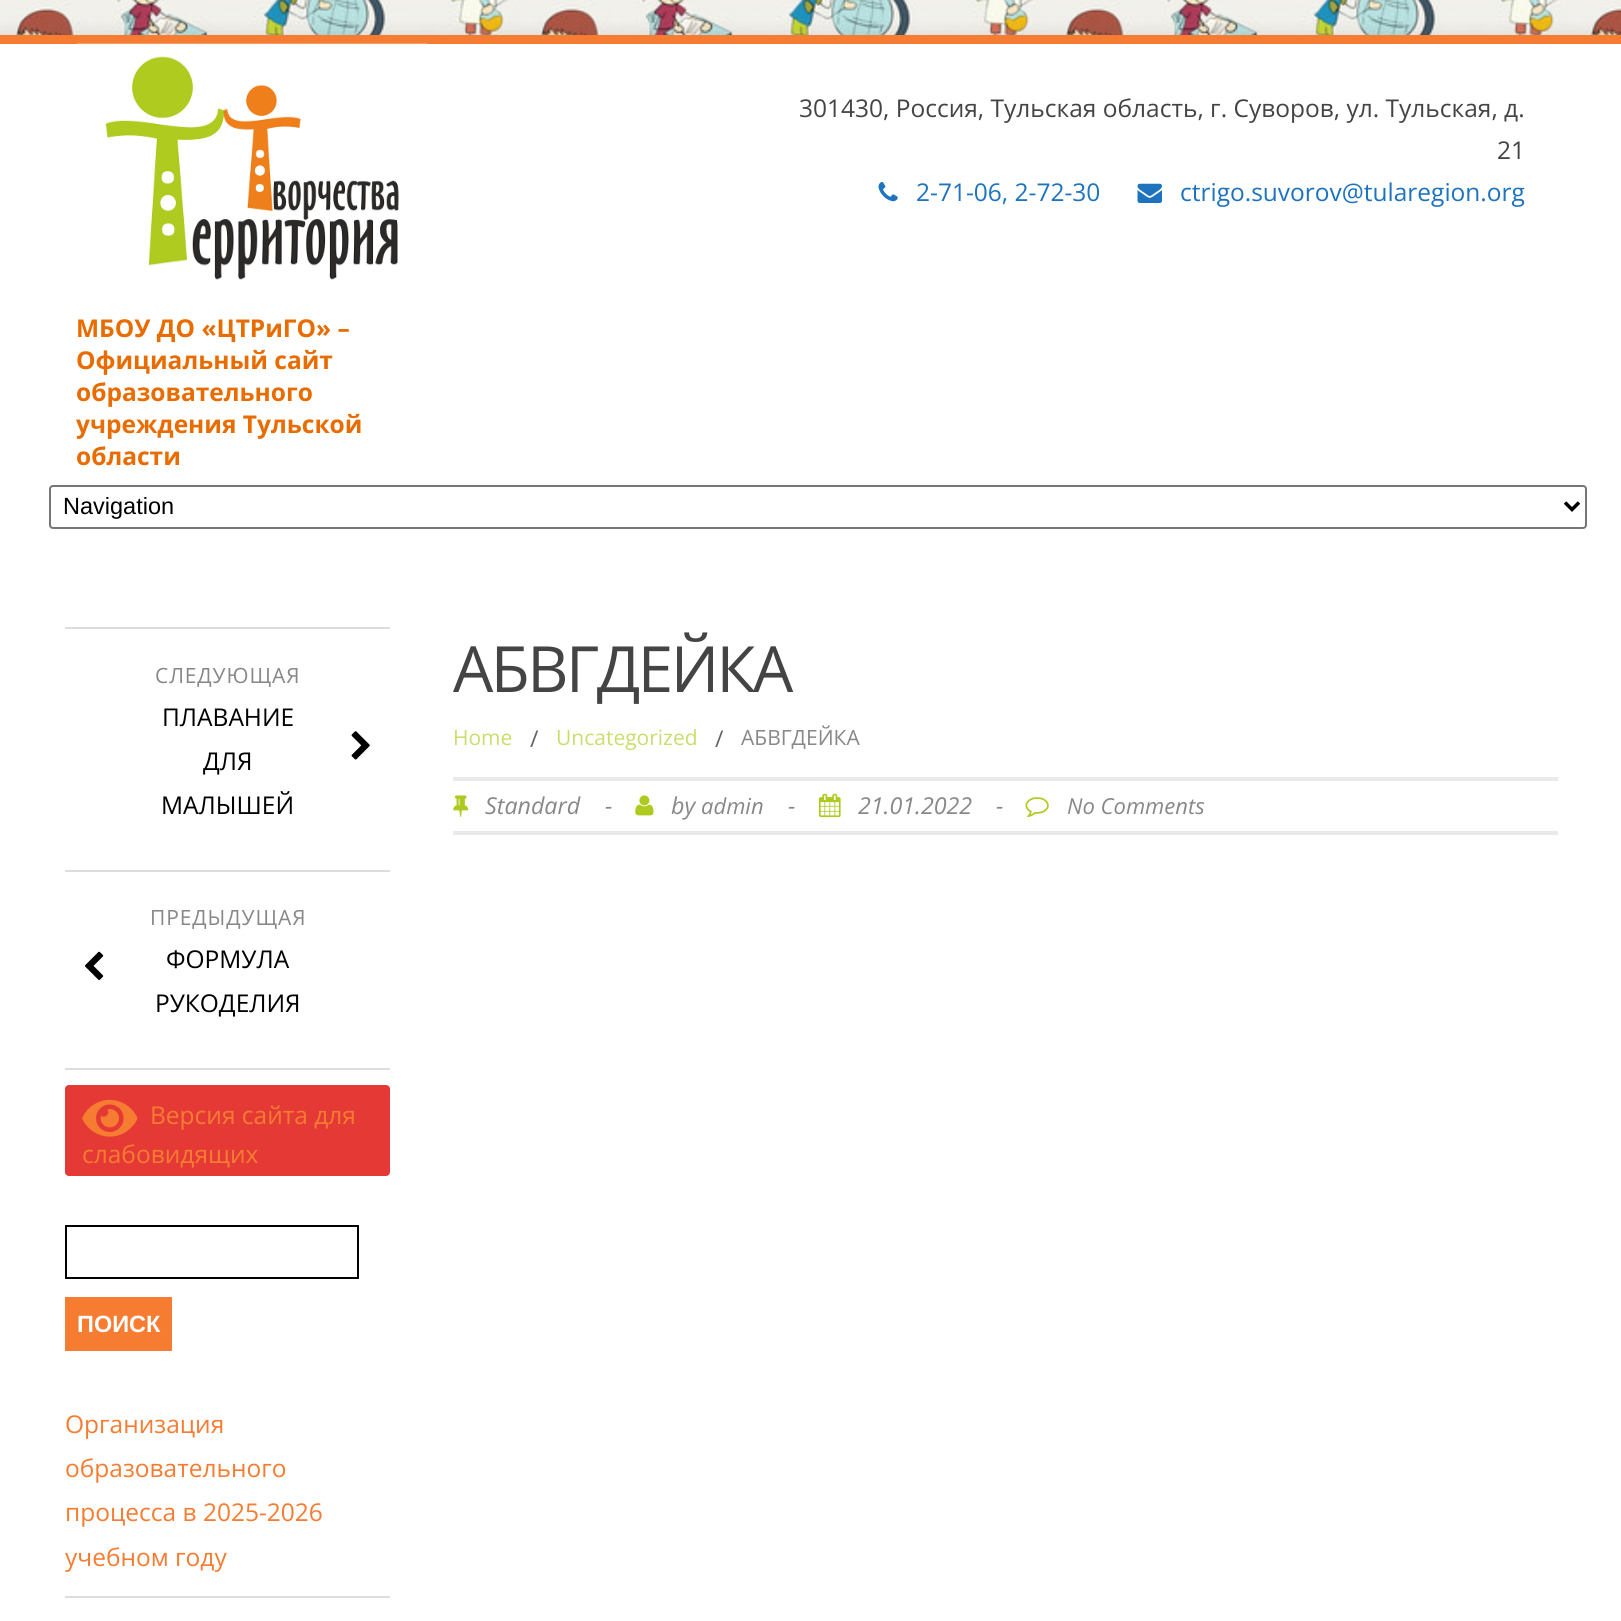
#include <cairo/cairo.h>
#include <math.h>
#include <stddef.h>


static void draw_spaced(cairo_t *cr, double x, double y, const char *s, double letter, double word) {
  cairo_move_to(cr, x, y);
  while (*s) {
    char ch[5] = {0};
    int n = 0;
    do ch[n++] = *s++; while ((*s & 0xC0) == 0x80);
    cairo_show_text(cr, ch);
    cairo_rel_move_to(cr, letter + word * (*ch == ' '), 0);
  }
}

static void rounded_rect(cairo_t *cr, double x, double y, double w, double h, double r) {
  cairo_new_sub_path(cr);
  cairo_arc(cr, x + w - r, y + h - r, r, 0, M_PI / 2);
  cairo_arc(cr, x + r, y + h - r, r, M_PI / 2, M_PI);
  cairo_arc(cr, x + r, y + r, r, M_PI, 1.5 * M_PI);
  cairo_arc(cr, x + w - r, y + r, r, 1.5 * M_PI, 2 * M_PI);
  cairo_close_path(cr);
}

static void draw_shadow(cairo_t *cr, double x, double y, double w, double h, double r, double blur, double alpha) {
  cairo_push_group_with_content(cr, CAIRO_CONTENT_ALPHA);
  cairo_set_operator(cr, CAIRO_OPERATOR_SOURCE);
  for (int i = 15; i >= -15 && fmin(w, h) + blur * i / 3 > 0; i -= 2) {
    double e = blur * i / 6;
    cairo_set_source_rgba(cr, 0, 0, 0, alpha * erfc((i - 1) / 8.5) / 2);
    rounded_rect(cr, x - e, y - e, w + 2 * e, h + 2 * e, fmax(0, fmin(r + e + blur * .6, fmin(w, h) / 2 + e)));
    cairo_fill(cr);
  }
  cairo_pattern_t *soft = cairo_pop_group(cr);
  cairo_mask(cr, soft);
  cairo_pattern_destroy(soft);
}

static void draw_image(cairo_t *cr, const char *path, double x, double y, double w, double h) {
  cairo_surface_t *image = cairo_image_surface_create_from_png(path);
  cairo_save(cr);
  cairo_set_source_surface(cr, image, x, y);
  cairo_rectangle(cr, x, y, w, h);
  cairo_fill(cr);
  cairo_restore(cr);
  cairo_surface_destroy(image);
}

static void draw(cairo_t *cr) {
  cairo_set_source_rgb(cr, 1, 1, 1);
  cairo_paint(cr);
  draw_image(cr, "images/1.png", 0, 0, 1621, 35);
  cairo_set_source_rgb(cr, 87 / 255.0, 87 / 255.0, 87 / 255.0);
  draw_shadow(cr, 0, 35, 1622, 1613, 0, 9, 0.2);
  cairo_set_source_rgb(cr, 1, 1, 1);
  cairo_rectangle(cr, 0, 44, 1621, 1577);
  cairo_fill(cr);
  cairo_set_source_rgb(cr, 246 / 255.0, 124 / 255.0, 49 / 255.0);
  cairo_rectangle(cr, 0, 35, 1621, 9);
  cairo_fill(cr);
  draw_image(cr, "images/2.png", 878, 182, 20, 20);
  draw_image(cr, "images/3.png", 1137, 183, 25, 20);
  draw_image(cr, "images/4.png", 77, 43, 350, 237);
  rounded_rect(cr, 50, 486, 1536, 42, 3);
  cairo_set_source_rgb(cr, 118 / 255.0, 118 / 255.0, 118 / 255.0);
  cairo_stroke(cr);
  cairo_new_path(cr);
  cairo_move_to(cr, 1565, 502.5);
  cairo_line_to(cr, 1572, 509.5);
  cairo_line_to(cr, 1579, 502.5);
  cairo_set_source_rgb(cr, 0, 0, 0);
  cairo_set_line_width(cr, 3.5);
  cairo_stroke(cr);
  cairo_set_source_rgb(cr, 221 / 255.0, 221 / 255.0, 221 / 255.0);
  cairo_rectangle(cr, 65, 1068, 325, 2);
  cairo_fill(cr);
  cairo_rectangle(cr, 65, 627, 325, 2);
  cairo_fill(cr);
  draw_image(cr, "images/5.png", 351, 731, 19, 29);
  cairo_rectangle(cr, 65, 870, 325, 2);
  cairo_fill(cr);
  draw_image(cr, "images/6.png", 85, 951, 19, 29);
  cairo_set_source_rgb(cr, 229 / 255.0, 57 / 255.0, 53 / 255.0);
  rounded_rect(cr, 65, 1085, 325, 91, 4);
  cairo_fill(cr);
  draw_image(cr, "images/7.png", 82, 1099, 56, 38);
  cairo_rectangle(cr, 66, 1226, 292, 52);
  cairo_set_source_rgb(cr, 0, 0, 0);
  cairo_set_line_width(cr, 2);
  cairo_stroke(cr);
  cairo_set_source_rgb(cr, 246 / 255.0, 124 / 255.0, 49 / 255.0);
  cairo_rectangle(cr, 65, 1297, 107, 54);
  cairo_fill(cr);
  cairo_set_source_rgb(cr, 221 / 255.0, 221 / 255.0, 221 / 255.0);
  cairo_rectangle(cr, 65, 1596, 325, 2);
  cairo_fill(cr);
  cairo_set_source_rgb(cr, 234 / 255.0, 234 / 255.0, 234 / 255.0);
  cairo_rectangle(cr, 453, 777, 1105, 4);
  cairo_fill(cr);
  cairo_rectangle(cr, 453, 831, 1105, 4);
  cairo_fill(cr);
  draw_image(cr, "images/8.png", 453, 795, 16, 22);
  draw_image(cr, "images/9.png", 635, 795, 19, 21);
  draw_image(cr, "images/10.png", 819, 793, 22, 25);
  draw_image(cr, "images/11.png", 1025, 797, 24, 21);
  cairo_select_font_face(cr, "Open Sans", CAIRO_FONT_SLANT_NORMAL, CAIRO_FONT_WEIGHT_NORMAL);
  cairo_set_font_size(cr, 24.5);
  cairo_set_source_rgb(cr, 68 / 255.0, 68 / 255.0, 68 / 255.0);
  cairo_move_to(cr, 799, 117);
  cairo_show_text(cr, "301430, Россия, Тульская область, г. Суворов, ул. Тульская, д.");
  cairo_move_to(cr, 1497, 159);
  cairo_show_text(cr, "21");
  cairo_set_source_rgb(cr, 30 / 255.0, 115 / 255.0, 190 / 255.0);
  cairo_move_to(cr, 916, 201);
  cairo_show_text(cr, "2-71-06, 2-72-30");
  cairo_move_to(cr, 1180, 201);
  cairo_show_text(cr, "ctrigo.suvorov@tularegion.org");
  cairo_select_font_face(cr, "Open Sans", CAIRO_FONT_SLANT_NORMAL, CAIRO_FONT_WEIGHT_BOLD);
  cairo_set_source_rgb(cr, 232 / 255.0, 108 / 255.0, 0);
  cairo_move_to(cr, 76, 337);
  cairo_show_text(cr, "МБОУ ДО «ЦТРиГО» –");
  cairo_move_to(cr, 76, 369);
  cairo_show_text(cr, "Официальный сайт");
  cairo_move_to(cr, 76, 401);
  cairo_show_text(cr, "образовательного");
  cairo_move_to(cr, 76, 433);
  cairo_show_text(cr, "учреждения Тульской");
  cairo_move_to(cr, 76, 465);
  cairo_show_text(cr, "области");
  cairo_select_font_face(cr, "Liberation Sans", CAIRO_FONT_SLANT_NORMAL, CAIRO_FONT_WEIGHT_NORMAL);
  cairo_set_font_size(cr, 23.5);
  cairo_set_source_rgb(cr, 0, 0, 0);
  cairo_move_to(cr, 63, 514);
  cairo_show_text(cr, "Navigation");
  cairo_select_font_face(cr, "Open Sans", CAIRO_FONT_SLANT_NORMAL, CAIRO_FONT_WEIGHT_NORMAL);
  cairo_set_font_size(cr, 21);
  cairo_set_source_rgb(cr, 136 / 255.0, 136 / 255.0, 136 / 255.0);
  draw_spaced(cr, 155, 683, "СЛЕДУЮЩАЯ", 0.9, 0);
  cairo_set_font_size(cr, 24.5);
  cairo_set_source_rgb(cr, 0, 0, 0);
  cairo_move_to(cr, 162, 726);
  cairo_show_text(cr, "ПЛАВАНИЕ");
  cairo_move_to(cr, 203, 770);
  cairo_show_text(cr, "ДЛЯ");
  cairo_move_to(cr, 161, 814);
  cairo_show_text(cr, "МАЛЫШЕЙ");
  cairo_set_font_size(cr, 21);
  cairo_set_source_rgb(cr, 136 / 255.0, 136 / 255.0, 136 / 255.0);
  draw_spaced(cr, 150, 925, "ПРЕДЫДУЩАЯ", 0.9, 0);
  cairo_set_font_size(cr, 24.5);
  cairo_set_source_rgb(cr, 0, 0, 0);
  cairo_move_to(cr, 166, 968);
  cairo_show_text(cr, "ФОРМУЛА");
  cairo_move_to(cr, 155, 1012);
  cairo_show_text(cr, "РУКОДЕЛИЯ");
  cairo_set_source_rgb(cr, 246 / 255.0, 124 / 255.0, 49 / 255.0);
  cairo_move_to(cr, 150, 1124);
  cairo_show_text(cr, "Версия сайта для");
  cairo_move_to(cr, 82, 1163);
  cairo_show_text(cr, "слабовидящих");
  cairo_select_font_face(cr, "Liberation Sans", CAIRO_FONT_SLANT_NORMAL, CAIRO_FONT_WEIGHT_BOLD);
  cairo_set_font_size(cr, 23.5);
  cairo_set_source_rgb(cr, 1, 1, 1);
  cairo_move_to(cr, 77, 1332);
  cairo_show_text(cr, "ПОИСК");
  cairo_select_font_face(cr, "Open Sans", CAIRO_FONT_SLANT_NORMAL, CAIRO_FONT_WEIGHT_NORMAL);
  cairo_set_font_size(cr, 24.5);
  cairo_set_source_rgb(cr, 246 / 255.0, 124 / 255.0, 49 / 255.0);
  cairo_move_to(cr, 65, 1433);
  cairo_show_text(cr, "Организация");
  cairo_move_to(cr, 65, 1477);
  cairo_show_text(cr, "образовательного");
  cairo_move_to(cr, 65, 1521);
  cairo_show_text(cr, "процесса в 2025-2026");
  cairo_move_to(cr, 65, 1566);
  cairo_show_text(cr, "учебном году");
  cairo_set_font_size(cr, 63.75);
  cairo_set_source_rgb(cr, 68 / 255.0, 68 / 255.0, 68 / 255.0);
  draw_spaced(cr, 453, 692, "АБВГДЕЙКА", -2.5, 0);
  cairo_set_font_size(cr, 21);
  cairo_set_source_rgb(cr, 202 / 255.0, 221 / 255.0, 109 / 255.0);
  cairo_move_to(cr, 453, 745);
  cairo_show_text(cr, "Home");
  cairo_set_font_size(cr, 23);
  cairo_set_source_rgb(cr, 100 / 255.0, 100 / 255.0, 100 / 255.0);
  cairo_move_to(cr, 530, 747);
  cairo_show_text(cr, "/");
  cairo_set_font_size(cr, 21);
  cairo_set_source_rgb(cr, 202 / 255.0, 221 / 255.0, 109 / 255.0);
  cairo_move_to(cr, 556, 745);
  cairo_show_text(cr, "Uncategorized");
  cairo_set_font_size(cr, 23);
  cairo_set_source_rgb(cr, 100 / 255.0, 100 / 255.0, 100 / 255.0);
  cairo_move_to(cr, 715, 747);
  cairo_show_text(cr, "/");
  cairo_set_font_size(cr, 21);
  cairo_set_source_rgb(cr, 136 / 255.0, 136 / 255.0, 136 / 255.0);
  cairo_move_to(cr, 741, 745);
  cairo_show_text(cr, "АБВГДЕЙКА");
  cairo_select_font_face(cr, "Open Sans", CAIRO_FONT_SLANT_ITALIC, CAIRO_FONT_WEIGHT_NORMAL);
  cairo_set_font_size(cr, 23.25);
  cairo_move_to(cr, 485, 814);
  cairo_show_text(cr, "Standard");
  cairo_move_to(cr, 605, 814);
  cairo_show_text(cr, "-");
  cairo_move_to(cr, 671, 814);
  cairo_show_text(cr, "by");
  cairo_set_font_size(cr, 22);
  cairo_move_to(cr, 701, 814);
  cairo_show_text(cr, "admin");
  cairo_set_font_size(cr, 23.25);
  cairo_move_to(cr, 788, 814);
  cairo_show_text(cr, "-");
  cairo_move_to(cr, 858, 814);
  cairo_show_text(cr, "21.01.2022");
  cairo_move_to(cr, 996, 814);
  cairo_show_text(cr, "-");
  cairo_set_font_size(cr, 22);
  cairo_move_to(cr, 1067, 814);
  cairo_show_text(cr, "No Comments");
}

int main(void) {
  cairo_surface_t *surface = cairo_image_surface_create(CAIRO_FORMAT_RGB24, 1621, 1621);
  cairo_t *cr = cairo_create(surface);
  cairo_font_options_t *options = cairo_font_options_create();
  cairo_font_options_set_hint_metrics(options, CAIRO_HINT_METRICS_OFF);
  cairo_font_options_set_hint_style(options, CAIRO_HINT_STYLE_NONE);
  cairo_set_font_options(cr, options);
  cairo_set_miter_limit(cr, 4);
  draw(cr);
  cairo_surface_write_to_png(surface, "out.png");
  cairo_font_options_destroy(options);
  cairo_destroy(cr);
  cairo_surface_destroy(surface);
  return 0;
}
